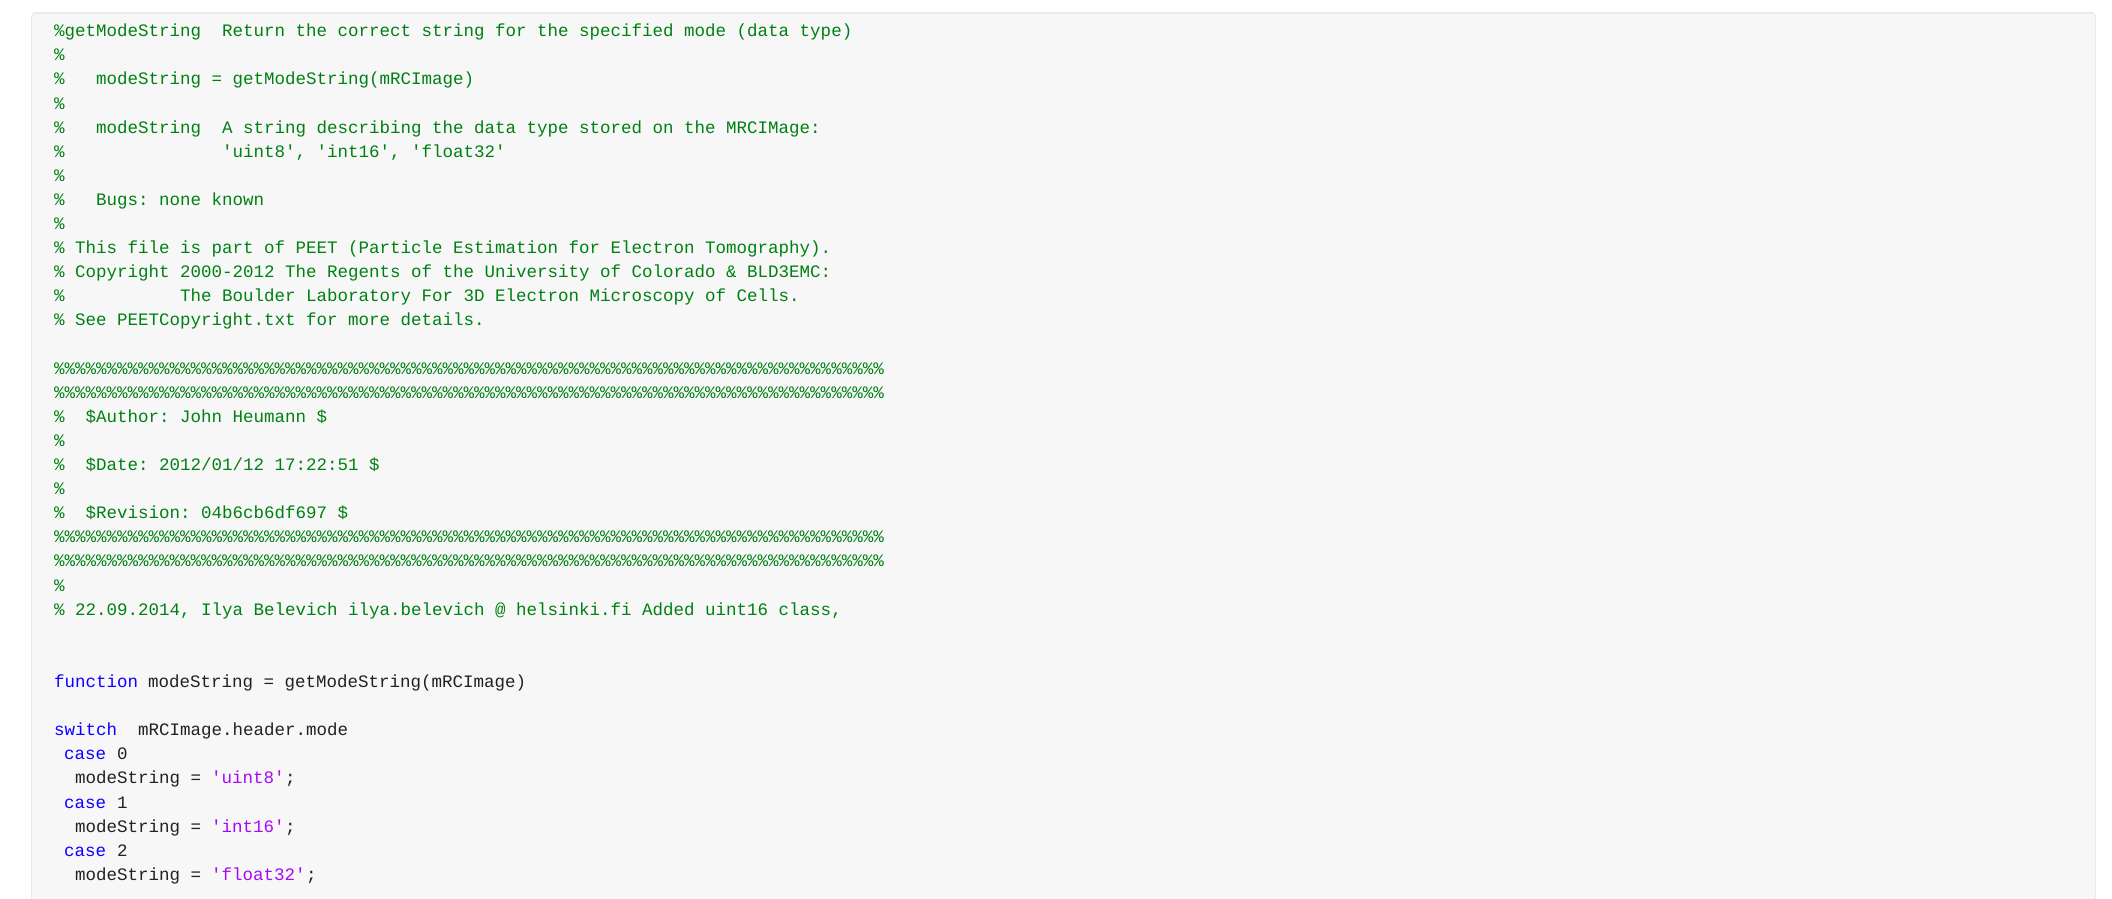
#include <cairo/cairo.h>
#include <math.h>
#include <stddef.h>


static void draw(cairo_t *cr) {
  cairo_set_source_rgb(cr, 1, 1, 1);
  cairo_paint(cr);
  cairo_set_source_rgb(cr, 247 / 255.0, 247 / 255.0, 247 / 255.0);
  cairo_new_path(cr);
  cairo_move_to(cr, 36, 13);
  cairo_line_to(cr, 2091, 13);
  cairo_curve_to(cr, 2094, 13, 2096, 15, 2096, 18);
  cairo_line_to(cr, 2096, 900);
  cairo_line_to(cr, 31, 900);
  cairo_line_to(cr, 31, 18);
  cairo_curve_to(cr, 31, 15, 33, 13, 36, 13);
  cairo_close_path(cr);
  cairo_fill(cr);
  cairo_set_source_rgb(cr, 233 / 255.0, 233 / 255.0, 233 / 255.0);
  cairo_set_fill_rule(cr, CAIRO_FILL_RULE_EVEN_ODD);
  cairo_new_path(cr);
  cairo_move_to(cr, 36, 12);
  cairo_line_to(cr, 2091, 12);
  cairo_curve_to(cr, 2094, 12, 2096, 15, 2096, 18);
  cairo_line_to(cr, 2096, 44);
  cairo_line_to(cr, 31, 44);
  cairo_line_to(cr, 31, 18);
  cairo_curve_to(cr, 31, 15, 33, 12, 36, 12);
  cairo_close_path(cr);
  cairo_move_to(cr, 36, 14);
  cairo_line_to(cr, 2093, 14);
  cairo_line_to(cr, 2095, 16);
  cairo_line_to(cr, 2095, 44);
  cairo_line_to(cr, 32, 44);
  cairo_line_to(cr, 32, 18);
  cairo_curve_to(cr, 32, 15, 34, 14, 36, 14);
  cairo_close_path(cr);
  cairo_fill(cr);
  cairo_rectangle(cr, 2095, 44, 1, 855);
  cairo_fill(cr);
  cairo_rectangle(cr, 31, 44, 1, 855);
  cairo_fill(cr);
  cairo_select_font_face(cr, "Liberation Mono", CAIRO_FONT_SLANT_NORMAL, CAIRO_FONT_WEIGHT_NORMAL);
  cairo_set_font_size(cr, 17.5);
  cairo_set_source_rgb(cr, 0, 128 / 255.0, 19 / 255.0);
  cairo_move_to(cr, 54, 36);
  cairo_show_text(cr, "%getModeString  Return the correct string for the specified mode (data type)");
  cairo_move_to(cr, 54, 60);
  cairo_show_text(cr, "%");
  cairo_move_to(cr, 54, 84);
  cairo_show_text(cr, "%   modeString = getModeString(mRCImage)");
  cairo_move_to(cr, 54, 109);
  cairo_show_text(cr, "%");
  cairo_move_to(cr, 54, 133);
  cairo_show_text(cr, "%   modeString  A string describing the data type stored on the MRCIMage:");
  cairo_move_to(cr, 54, 157);
  cairo_show_text(cr, "%               'uint8', 'int16', 'float32'");
  cairo_move_to(cr, 54, 181);
  cairo_show_text(cr, "%");
  cairo_move_to(cr, 54, 205);
  cairo_show_text(cr, "%   Bugs: none known");
  cairo_move_to(cr, 54, 229);
  cairo_show_text(cr, "%");
  cairo_move_to(cr, 54, 253);
  cairo_show_text(cr, "% This file is part of PEET (Particle Estimation for Electron Tomography).");
  cairo_move_to(cr, 54, 277);
  cairo_show_text(cr, "% Copyright 2000-2012 The Regents of the University of Colorado & BLD3EMC:");
  cairo_move_to(cr, 54, 301);
  cairo_show_text(cr, "%           The Boulder Laboratory For 3D Electron Microscopy of Cells.");
  cairo_move_to(cr, 54, 325);
  cairo_show_text(cr, "% See PEETCopyright.txt for more details.");
  cairo_move_to(cr, 54, 374);
  cairo_show_text(cr, "%%%%%%%%%%%%%%%%%%%%%%%%%%%%%%%%%%%%%%%%%%%%%%%%%%%%%%%%%%%%%%%%%%%%%%%%%%%%%%%");
  cairo_move_to(cr, 54, 398);
  cairo_show_text(cr, "%%%%%%%%%%%%%%%%%%%%%%%%%%%%%%%%%%%%%%%%%%%%%%%%%%%%%%%%%%%%%%%%%%%%%%%%%%%%%%%");
  cairo_move_to(cr, 54, 422);
  cairo_show_text(cr, "%  $Author: John Heumann $");
  cairo_move_to(cr, 54, 446);
  cairo_show_text(cr, "%");
  cairo_move_to(cr, 54, 470);
  cairo_show_text(cr, "%  $Date: 2012/01/12 17:22:51 $");
  cairo_move_to(cr, 54, 494);
  cairo_show_text(cr, "%");
  cairo_move_to(cr, 54, 518);
  cairo_show_text(cr, "%  $Revision: 04b6cb6df697 $");
  cairo_move_to(cr, 54, 542);
  cairo_show_text(cr, "%%%%%%%%%%%%%%%%%%%%%%%%%%%%%%%%%%%%%%%%%%%%%%%%%%%%%%%%%%%%%%%%%%%%%%%%%%%%%%%");
  cairo_move_to(cr, 54, 566);
  cairo_show_text(cr, "%%%%%%%%%%%%%%%%%%%%%%%%%%%%%%%%%%%%%%%%%%%%%%%%%%%%%%%%%%%%%%%%%%%%%%%%%%%%%%%");
  cairo_move_to(cr, 54, 591);
  cairo_show_text(cr, "%");
  cairo_move_to(cr, 54, 615);
  cairo_show_text(cr, "% 22.09.2014, Ilya Belevich ilya.belevich @ helsinki.fi Added uint16 class,");
  cairo_set_source_rgb(cr, 14 / 255.0, 0, 1);
  cairo_move_to(cr, 54, 687);
  cairo_show_text(cr, "function");
  cairo_set_source_rgb(cr, 33 / 255.0, 33 / 255.0, 33 / 255.0);
  cairo_move_to(cr, 148, 687);
  cairo_show_text(cr, "modeString = getModeString(mRCImage)");
  cairo_set_source_rgb(cr, 14 / 255.0, 0, 1);
  cairo_move_to(cr, 54, 735);
  cairo_show_text(cr, "switch");
  cairo_set_source_rgb(cr, 33 / 255.0, 33 / 255.0, 33 / 255.0);
  cairo_move_to(cr, 138, 735);
  cairo_show_text(cr, "mRCImage.header.mode");
  cairo_set_source_rgb(cr, 14 / 255.0, 0, 1);
  cairo_move_to(cr, 64, 759);
  cairo_show_text(cr, "case");
  cairo_set_source_rgb(cr, 33 / 255.0, 33 / 255.0, 33 / 255.0);
  cairo_move_to(cr, 117, 759);
  cairo_show_text(cr, "0");
  cairo_move_to(cr, 75, 783);
  cairo_show_text(cr, "modeString =");
  cairo_set_source_rgb(cr, 167 / 255.0, 9 / 255.0, 245 / 255.0);
  cairo_move_to(cr, 211, 783);
  cairo_show_text(cr, "'uint8'");
  cairo_set_source_rgb(cr, 33 / 255.0, 33 / 255.0, 33 / 255.0);
  cairo_move_to(cr, 285, 783);
  cairo_show_text(cr, ";");
  cairo_set_source_rgb(cr, 14 / 255.0, 0, 1);
  cairo_move_to(cr, 64, 808);
  cairo_show_text(cr, "case");
  cairo_set_source_rgb(cr, 33 / 255.0, 33 / 255.0, 33 / 255.0);
  cairo_move_to(cr, 117, 808);
  cairo_show_text(cr, "1");
  cairo_move_to(cr, 75, 832);
  cairo_show_text(cr, "modeString =");
  cairo_set_source_rgb(cr, 167 / 255.0, 9 / 255.0, 245 / 255.0);
  cairo_move_to(cr, 211, 832);
  cairo_show_text(cr, "'int16'");
  cairo_set_source_rgb(cr, 33 / 255.0, 33 / 255.0, 33 / 255.0);
  cairo_move_to(cr, 285, 832);
  cairo_show_text(cr, ";");
  cairo_set_source_rgb(cr, 14 / 255.0, 0, 1);
  cairo_move_to(cr, 64, 856);
  cairo_show_text(cr, "case");
  cairo_set_source_rgb(cr, 33 / 255.0, 33 / 255.0, 33 / 255.0);
  cairo_move_to(cr, 117, 856);
  cairo_show_text(cr, "2");
  cairo_move_to(cr, 75, 880);
  cairo_show_text(cr, "modeString =");
  cairo_set_source_rgb(cr, 167 / 255.0, 9 / 255.0, 245 / 255.0);
  cairo_move_to(cr, 211, 880);
  cairo_show_text(cr, "'float32'");
  cairo_set_source_rgb(cr, 33 / 255.0, 33 / 255.0, 33 / 255.0);
  cairo_move_to(cr, 306, 880);
  cairo_show_text(cr, ";");
}

int main(void) {
  cairo_surface_t *surface = cairo_image_surface_create(CAIRO_FORMAT_RGB24, 2112, 899);
  cairo_t *cr = cairo_create(surface);
  cairo_font_options_t *options = cairo_font_options_create();
  cairo_font_options_set_hint_metrics(options, CAIRO_HINT_METRICS_OFF);
  cairo_font_options_set_hint_style(options, CAIRO_HINT_STYLE_NONE);
  cairo_set_font_options(cr, options);
  cairo_set_miter_limit(cr, 4);
  draw(cr);
  cairo_surface_write_to_png(surface, "out.png");
  cairo_font_options_destroy(options);
  cairo_destroy(cr);
  cairo_surface_destroy(surface);
  return 0;
}
